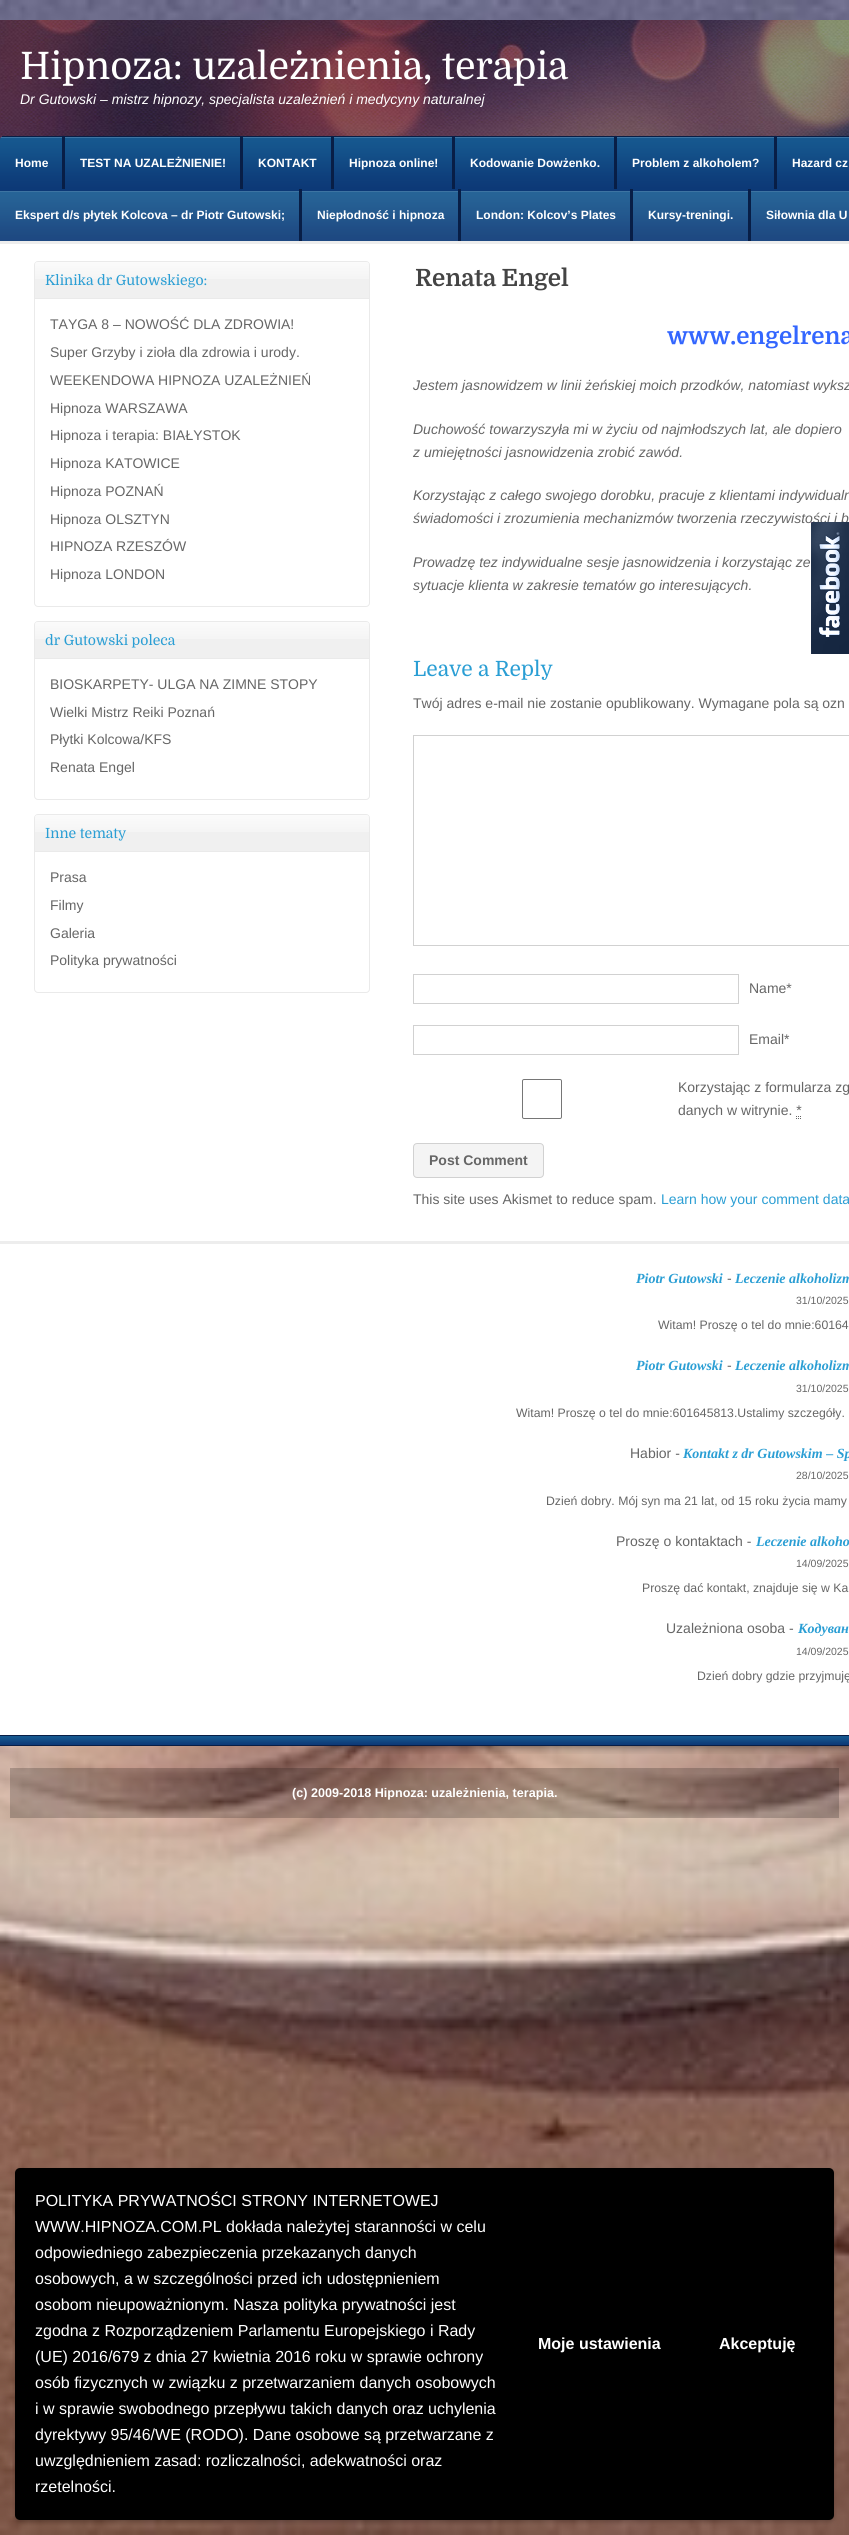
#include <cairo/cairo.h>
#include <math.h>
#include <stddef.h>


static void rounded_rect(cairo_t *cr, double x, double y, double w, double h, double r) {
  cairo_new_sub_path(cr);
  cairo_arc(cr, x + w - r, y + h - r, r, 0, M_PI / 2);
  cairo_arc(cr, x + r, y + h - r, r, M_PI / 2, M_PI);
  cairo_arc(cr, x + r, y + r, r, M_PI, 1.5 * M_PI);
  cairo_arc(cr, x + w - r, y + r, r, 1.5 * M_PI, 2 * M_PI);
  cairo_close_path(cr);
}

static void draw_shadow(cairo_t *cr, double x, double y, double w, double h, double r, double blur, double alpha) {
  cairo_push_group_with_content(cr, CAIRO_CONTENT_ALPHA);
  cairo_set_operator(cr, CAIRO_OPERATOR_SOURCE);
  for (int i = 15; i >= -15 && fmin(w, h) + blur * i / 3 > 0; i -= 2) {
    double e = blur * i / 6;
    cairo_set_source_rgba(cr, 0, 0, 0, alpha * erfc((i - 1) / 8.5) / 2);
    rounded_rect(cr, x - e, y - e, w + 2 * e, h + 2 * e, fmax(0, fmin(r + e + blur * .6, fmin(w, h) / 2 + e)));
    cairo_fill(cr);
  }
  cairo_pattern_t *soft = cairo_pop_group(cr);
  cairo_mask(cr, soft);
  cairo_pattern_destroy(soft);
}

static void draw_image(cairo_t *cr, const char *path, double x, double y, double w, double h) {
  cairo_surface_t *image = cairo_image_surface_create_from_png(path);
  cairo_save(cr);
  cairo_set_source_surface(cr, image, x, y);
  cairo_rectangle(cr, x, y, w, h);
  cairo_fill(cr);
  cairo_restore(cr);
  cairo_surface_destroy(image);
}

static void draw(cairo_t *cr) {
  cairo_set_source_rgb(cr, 1, 1, 1);
  cairo_paint(cr);
  draw_image(cr, "images/1.png", 0, 0, 849, 2535);
  draw_image(cr, "images/2.png", 0, 20, 849, 120);
  draw_image(cr, "images/3.png", 0, 137, 849, 104);
  cairo_set_source_rgb(cr, 8 / 255.0, 30 / 255.0, 70 / 255.0);
  cairo_rectangle(cr, 2, 136, 847, 1);
  cairo_fill(cr);
  cairo_rectangle(cr, 62, 137, 3, 52);
  cairo_fill(cr);
  cairo_rectangle(cr, 240, 137, 3, 52);
  cairo_fill(cr);
  cairo_rectangle(cr, 331, 137, 3, 52);
  cairo_fill(cr);
  cairo_rectangle(cr, 452, 137, 3, 52);
  cairo_fill(cr);
  cairo_rectangle(cr, 614, 137, 3, 52);
  cairo_fill(cr);
  cairo_rectangle(cr, 774, 137, 3, 52);
  cairo_fill(cr);
  cairo_rectangle(cr, 299, 189, 3, 52);
  cairo_fill(cr);
  cairo_rectangle(cr, 458, 189, 3, 52);
  cairo_fill(cr);
  cairo_rectangle(cr, 630, 189, 3, 52);
  cairo_fill(cr);
  cairo_rectangle(cr, 748, 189, 3, 52);
  cairo_fill(cr);
  cairo_set_source_rgb(cr, 1, 1, 1);
  cairo_rectangle(cr, 0, 244, 849, 1491);
  cairo_fill(cr);
  cairo_set_source_rgb(cr, 237 / 255.0, 237 / 255.0, 237 / 255.0);
  cairo_rectangle(cr, 0, 241, 849, 3);
  cairo_fill(cr);
  cairo_set_source_rgb(cr, 8 / 255.0, 30 / 255.0, 70 / 255.0);
  cairo_rectangle(cr, 0, 1745, 849, 1);
  cairo_fill(cr);
  draw_image(cr, "images/4.png", 0, 1735, 849, 10);
  rounded_rect(cr, 34.5, 261.5, 335, 345, 3.5);
  cairo_set_source_rgb(cr, 234 / 255.0, 234 / 255.0, 234 / 255.0);
  cairo_set_line_width(cr, 1);
  cairo_stroke(cr);
  cairo_set_source_rgb(cr, 240 / 255.0, 240 / 255.0, 240 / 255.0);
  cairo_new_path(cr);
  cairo_move_to(cr, 38, 262);
  cairo_line_to(cr, 366, 262);
  cairo_curve_to(cr, 367.5, 262, 369, 263.5, 369, 265);
  cairo_line_to(cr, 369, 299);
  cairo_line_to(cr, 35, 299);
  cairo_line_to(cr, 35, 265);
  cairo_curve_to(cr, 35, 263.5, 36.5, 262, 38, 262);
  cairo_close_path(cr);
  cairo_fill(cr);
  draw_image(cr, "images/5.png", 35, 262, 334, 17);
  cairo_set_source_rgb(cr, 234 / 255.0, 234 / 255.0, 234 / 255.0);
  cairo_rectangle(cr, 35, 298, 334, 1);
  cairo_fill(cr);
  rounded_rect(cr, 34.5, 621.5, 335, 178, 3.5);
  cairo_stroke(cr);
  cairo_set_source_rgb(cr, 240 / 255.0, 240 / 255.0, 240 / 255.0);
  cairo_new_path(cr);
  cairo_move_to(cr, 38, 622);
  cairo_line_to(cr, 366, 622);
  cairo_curve_to(cr, 367.5, 622, 369, 623.5, 369, 625);
  cairo_line_to(cr, 369, 659);
  cairo_line_to(cr, 35, 659);
  cairo_line_to(cr, 35, 625);
  cairo_curve_to(cr, 35, 623.5, 36.5, 622, 38, 622);
  cairo_close_path(cr);
  cairo_fill(cr);
  draw_image(cr, "images/5.png", 35, 622, 334, 17);
  cairo_set_source_rgb(cr, 234 / 255.0, 234 / 255.0, 234 / 255.0);
  cairo_rectangle(cr, 35, 658, 334, 1);
  cairo_fill(cr);
  rounded_rect(cr, 34.5, 814.5, 335, 178, 3.5);
  cairo_stroke(cr);
  cairo_set_source_rgb(cr, 240 / 255.0, 240 / 255.0, 240 / 255.0);
  cairo_new_path(cr);
  cairo_move_to(cr, 38, 815);
  cairo_line_to(cr, 366, 815);
  cairo_curve_to(cr, 367.5, 815, 369, 816.5, 369, 818);
  cairo_line_to(cr, 369, 852);
  cairo_line_to(cr, 35, 852);
  cairo_line_to(cr, 35, 818);
  cairo_curve_to(cr, 35, 816.5, 36.5, 815, 38, 815);
  cairo_close_path(cr);
  cairo_fill(cr);
  draw_image(cr, "images/5.png", 35, 815, 334, 17);
  cairo_set_source_rgb(cr, 234 / 255.0, 234 / 255.0, 234 / 255.0);
  cairo_rectangle(cr, 35, 851, 334, 1);
  cairo_fill(cr);
  cairo_rectangle(cr, 413.5, 735.5, 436, 210);
  cairo_set_source_rgb(cr, 209 / 255.0, 209 / 255.0, 209 / 255.0);
  cairo_stroke(cr);
  cairo_rectangle(cr, 413.5, 974.5, 325, 29);
  cairo_stroke(cr);
  cairo_rectangle(cr, 413.5, 1025.5, 325, 29);
  cairo_stroke(cr);
  rounded_rect(cr, 522.5, 1079.5, 39, 39, 1.5);
  cairo_set_source_rgb(cr, 118 / 255.0, 118 / 255.0, 118 / 255.0);
  cairo_stroke(cr);
  cairo_new_path(cr);
  cairo_move_to(cr, 796, 1118.5);
  cairo_line_to(cr, 797, 1118.5);
  cairo_move_to(cr, 798, 1118.5);
  cairo_line_to(cr, 799, 1118.5);
  cairo_move_to(cr, 800, 1118.5);
  cairo_line_to(cr, 801, 1118.5);
  cairo_move_to(cr, 796, 1116.5);
  cairo_line_to(cr, 797, 1116.5);
  cairo_move_to(cr, 798, 1116.5);
  cairo_line_to(cr, 799, 1116.5);
  cairo_move_to(cr, 800, 1116.5);
  cairo_line_to(cr, 801, 1116.5);
  cairo_set_source_rgb(cr, 102 / 255.0, 102 / 255.0, 102 / 255.0);
  cairo_stroke(cr);
  cairo_set_source_rgb(cr, 244 / 255.0, 244 / 255.0, 244 / 255.0);
  rounded_rect(cr, 413.5, 1143.5, 130, 34, 3.5);
  cairo_fill_preserve(cr);
  cairo_set_source_rgb(cr, 209 / 255.0, 209 / 255.0, 209 / 255.0);
  cairo_stroke(cr);
  cairo_set_source_rgb(cr, 237 / 255.0, 237 / 255.0, 237 / 255.0);
  cairo_rectangle(cr, 0, 1241, 849, 3);
  cairo_fill(cr);
  draw_image(cr, "images/7.png", 324, 1746, 525, 8);
  cairo_set_source_rgba(cr, 0, 0, 0, 0.2);
  cairo_rectangle(cr, 10, 1768, 829, 50);
  cairo_fill(cr);
  cairo_set_source_rgb(cr, 0, 0, 0);
  draw_shadow(cr, 15, 2170, 819, 352, 5, 2, 0.2);
  cairo_set_source_rgb(cr, 0, 0, 0);
  rounded_rect(cr, 15, 2168, 819, 352, 5);
  cairo_fill(cr);
  cairo_select_font_face(cr, "Domine", CAIRO_FONT_SLANT_NORMAL, CAIRO_FONT_WEIGHT_NORMAL);
  cairo_set_font_size(cr, 37.75);
  cairo_set_source_rgb(cr, 1, 1, 1);
  cairo_move_to(cr, 20, 79);
  cairo_show_text(cr, "Hipnoza: uzależnienia, terapia");
  cairo_select_font_face(cr, "Liberation Sans", CAIRO_FONT_SLANT_ITALIC, CAIRO_FONT_WEIGHT_NORMAL);
  cairo_set_font_size(cr, 14);
  cairo_move_to(cr, 20, 104);
  cairo_show_text(cr, "Dr Gutowski – mistrz hipnozy, specjalista uzależnień i medycyny naturalnej");
  cairo_select_font_face(cr, "Liberation Sans", CAIRO_FONT_SLANT_NORMAL, CAIRO_FONT_WEIGHT_BOLD);
  cairo_set_font_size(cr, 12);
  cairo_move_to(cr, 15, 167);
  cairo_show_text(cr, "Home");
  cairo_move_to(cr, 80, 167);
  cairo_show_text(cr, "TEST NA UZALEŻNIENIE!");
  cairo_move_to(cr, 258, 167);
  cairo_show_text(cr, "KONTAKT");
  cairo_move_to(cr, 349, 167);
  cairo_show_text(cr, "Hipnoza online!");
  cairo_move_to(cr, 470, 167);
  cairo_show_text(cr, "Kodowanie Dowżenko.");
  cairo_move_to(cr, 632, 167);
  cairo_show_text(cr, "Problem z alkoholem?");
  cairo_move_to(cr, 792, 167);
  cairo_show_text(cr, "Hazard cz");
  cairo_move_to(cr, 15, 219);
  cairo_show_text(cr, "Ekspert d/s płytek Kolcova – dr Piotr Gutowski;");
  cairo_move_to(cr, 317, 219);
  cairo_show_text(cr, "Niepłodność i hipnoza");
  cairo_move_to(cr, 476, 219);
  cairo_show_text(cr, "London: Kolcov’s Plates");
  cairo_move_to(cr, 648, 219);
  cairo_show_text(cr, "Kursy-treningi.");
  cairo_move_to(cr, 766, 219);
  cairo_show_text(cr, "Siłownia dla U");
  cairo_select_font_face(cr, "Domine", CAIRO_FONT_SLANT_NORMAL, CAIRO_FONT_WEIGHT_NORMAL);
  cairo_set_font_size(cr, 14);
  cairo_set_source_rgb(cr, 42 / 255.0, 158 / 255.0, 212 / 255.0);
  cairo_move_to(cr, 45, 285);
  cairo_show_text(cr, "Klinika dr Gutowskiego:");
  cairo_select_font_face(cr, "Liberation Sans", CAIRO_FONT_SLANT_NORMAL, CAIRO_FONT_WEIGHT_NORMAL);
  cairo_set_source_rgb(cr, 102 / 255.0, 102 / 255.0, 102 / 255.0);
  cairo_move_to(cr, 50, 329);
  cairo_show_text(cr, "TAYGA 8 – NOWOŚĆ DLA ZDROWIA!");
  cairo_move_to(cr, 50, 357);
  cairo_show_text(cr, "Super Grzyby i zioła dla zdrowia i urody.");
  cairo_move_to(cr, 50, 385);
  cairo_show_text(cr, "WEEKENDOWA HIPNOZA UZALEŻNIEŃ");
  cairo_move_to(cr, 50, 413);
  cairo_show_text(cr, "Hipnoza WARSZAWA");
  cairo_move_to(cr, 50, 440);
  cairo_show_text(cr, "Hipnoza i terapia: BIAŁYSTOK");
  cairo_move_to(cr, 50, 468);
  cairo_show_text(cr, "Hipnoza KATOWICE");
  cairo_move_to(cr, 50, 496);
  cairo_show_text(cr, "Hipnoza POZNAŃ");
  cairo_move_to(cr, 50, 524);
  cairo_show_text(cr, "Hipnoza OLSZTYN");
  cairo_move_to(cr, 50, 551);
  cairo_show_text(cr, "HIPNOZA RZESZÓW");
  cairo_move_to(cr, 50, 579);
  cairo_show_text(cr, "Hipnoza LONDON");
  cairo_select_font_face(cr, "Domine", CAIRO_FONT_SLANT_NORMAL, CAIRO_FONT_WEIGHT_NORMAL);
  cairo_set_source_rgb(cr, 42 / 255.0, 158 / 255.0, 212 / 255.0);
  cairo_move_to(cr, 45, 645);
  cairo_show_text(cr, "dr Gutowski poleca");
  cairo_select_font_face(cr, "Liberation Sans", CAIRO_FONT_SLANT_NORMAL, CAIRO_FONT_WEIGHT_NORMAL);
  cairo_set_source_rgb(cr, 102 / 255.0, 102 / 255.0, 102 / 255.0);
  cairo_move_to(cr, 50, 689);
  cairo_show_text(cr, "BIOSKARPETY- ULGA NA ZIMNE STOPY");
  cairo_move_to(cr, 50, 717);
  cairo_show_text(cr, "Wielki Mistrz Reiki Poznań");
  cairo_move_to(cr, 50, 744);
  cairo_show_text(cr, "Płytki Kolcowa/KFS");
  cairo_move_to(cr, 50, 772);
  cairo_show_text(cr, "Renata Engel");
  cairo_select_font_face(cr, "Domine", CAIRO_FONT_SLANT_NORMAL, CAIRO_FONT_WEIGHT_NORMAL);
  cairo_set_source_rgb(cr, 42 / 255.0, 158 / 255.0, 212 / 255.0);
  cairo_move_to(cr, 45, 838);
  cairo_show_text(cr, "Inne tematy");
  cairo_select_font_face(cr, "Liberation Sans", CAIRO_FONT_SLANT_NORMAL, CAIRO_FONT_WEIGHT_NORMAL);
  cairo_set_source_rgb(cr, 102 / 255.0, 102 / 255.0, 102 / 255.0);
  cairo_move_to(cr, 50, 882);
  cairo_show_text(cr, "Prasa");
  cairo_move_to(cr, 50, 910);
  cairo_show_text(cr, "Filmy");
  cairo_move_to(cr, 50, 938);
  cairo_show_text(cr, "Galeria");
  cairo_move_to(cr, 50, 965);
  cairo_show_text(cr, "Polityka prywatności");
  cairo_select_font_face(cr, "Domine", CAIRO_FONT_SLANT_NORMAL, CAIRO_FONT_WEIGHT_BOLD);
  cairo_set_font_size(cr, 23.75);
  cairo_set_source_rgb(cr, 68 / 255.0, 68 / 255.0, 68 / 255.0);
  cairo_move_to(cr, 415, 286);
  cairo_show_text(cr, "Renata Engel");
  cairo_set_source_rgb(cr, 51 / 255.0, 102 / 255.0, 1);
  cairo_move_to(cr, 667, 344);
  cairo_show_text(cr, "www.engelrena");
  cairo_select_font_face(cr, "Liberation Sans", CAIRO_FONT_SLANT_ITALIC, CAIRO_FONT_WEIGHT_NORMAL);
  cairo_set_font_size(cr, 14);
  cairo_set_source_rgb(cr, 102 / 255.0, 102 / 255.0, 102 / 255.0);
  cairo_move_to(cr, 413, 390);
  cairo_show_text(cr, "Jestem jasnowidzem w linii żeńskiej moich przodków, natomiast wyksz");
  cairo_move_to(cr, 413, 434);
  cairo_show_text(cr, "Duchowość towarzyszyła mi w życiu od najmłodszych lat, ale dopiero");
  cairo_move_to(cr, 413, 457);
  cairo_show_text(cr, "z umiejętności jasnowidzenia zrobić zawód.");
  cairo_move_to(cr, 413, 500);
  cairo_show_text(cr, "Korzystając z całego swojego dorobku, pracuje z klientami indywidualn");
  cairo_move_to(cr, 413, 523);
  cairo_show_text(cr, "świadomości i zrozumienia mechanizmów tworzenia rzeczywistości i b");
  cairo_move_to(cr, 413, 567);
  cairo_show_text(cr, "Prowadzę tez indywidualne sesje jasnowidzenia i korzystając ze");
  cairo_move_to(cr, 413, 590);
  cairo_show_text(cr, "sytuacje klienta w zakresie tematów go interesujących.");
  cairo_select_font_face(cr, "Domine", CAIRO_FONT_SLANT_NORMAL, CAIRO_FONT_WEIGHT_NORMAL);
  cairo_set_font_size(cr, 21);
  cairo_set_source_rgb(cr, 42 / 255.0, 158 / 255.0, 212 / 255.0);
  cairo_move_to(cr, 413, 676);
  cairo_show_text(cr, "Leave a Reply");
  cairo_select_font_face(cr, "Liberation Sans", CAIRO_FONT_SLANT_NORMAL, CAIRO_FONT_WEIGHT_NORMAL);
  cairo_set_font_size(cr, 14);
  cairo_set_source_rgb(cr, 102 / 255.0, 102 / 255.0, 102 / 255.0);
  cairo_move_to(cr, 413, 708);
  cairo_show_text(cr, "Twój adres e-mail nie zostanie opublikowany. Wymagane pola są ozn");
  cairo_move_to(cr, 749, 993);
  cairo_show_text(cr, "Name*");
  cairo_move_to(cr, 749, 1044);
  cairo_show_text(cr, "Email*");
  cairo_move_to(cr, 678, 1092);
  cairo_show_text(cr, "Korzystając z formularza zg");
  cairo_move_to(cr, 678, 1115);
  cairo_show_text(cr, "danych w witrynie. *");
  cairo_select_font_face(cr, "Liberation Sans", CAIRO_FONT_SLANT_NORMAL, CAIRO_FONT_WEIGHT_BOLD);
  cairo_move_to(cr, 429, 1165);
  cairo_show_text(cr, "Post Comment");
  cairo_select_font_face(cr, "Liberation Sans", CAIRO_FONT_SLANT_NORMAL, CAIRO_FONT_WEIGHT_NORMAL);
  cairo_move_to(cr, 413, 1204);
  cairo_show_text(cr, "This site uses Akismet to reduce spam.");
  cairo_set_source_rgb(cr, 42 / 255.0, 158 / 255.0, 212 / 255.0);
  cairo_move_to(cr, 661, 1204);
  cairo_show_text(cr, "Learn how your comment data");
  cairo_select_font_face(cr, "Liberation Serif", CAIRO_FONT_SLANT_ITALIC, CAIRO_FONT_WEIGHT_BOLD);
  cairo_move_to(cr, 636, 1283);
  cairo_show_text(cr, "Piotr Gutowski");
  cairo_select_font_face(cr, "Liberation Sans", CAIRO_FONT_SLANT_NORMAL, CAIRO_FONT_WEIGHT_NORMAL);
  cairo_set_source_rgb(cr, 102 / 255.0, 102 / 255.0, 102 / 255.0);
  cairo_move_to(cr, 727, 1283);
  cairo_show_text(cr, "-");
  cairo_select_font_face(cr, "Liberation Serif", CAIRO_FONT_SLANT_ITALIC, CAIRO_FONT_WEIGHT_BOLD);
  cairo_set_source_rgb(cr, 42 / 255.0, 158 / 255.0, 212 / 255.0);
  cairo_move_to(cr, 735, 1283);
  cairo_show_text(cr, "Leczenie alkoholizm");
  cairo_select_font_face(cr, "Liberation Sans", CAIRO_FONT_SLANT_NORMAL, CAIRO_FONT_WEIGHT_NORMAL);
  cairo_set_font_size(cr, 10.5);
  cairo_set_source_rgb(cr, 102 / 255.0, 102 / 255.0, 102 / 255.0);
  cairo_move_to(cr, 796, 1304);
  cairo_show_text(cr, "31/10/2025");
  cairo_set_font_size(cr, 12.25);
  cairo_move_to(cr, 658, 1329);
  cairo_show_text(cr, "Witam! Proszę o tel do mnie:60164");
  cairo_select_font_face(cr, "Liberation Serif", CAIRO_FONT_SLANT_ITALIC, CAIRO_FONT_WEIGHT_BOLD);
  cairo_set_font_size(cr, 14);
  cairo_set_source_rgb(cr, 42 / 255.0, 158 / 255.0, 212 / 255.0);
  cairo_move_to(cr, 636, 1370);
  cairo_show_text(cr, "Piotr Gutowski");
  cairo_select_font_face(cr, "Liberation Sans", CAIRO_FONT_SLANT_NORMAL, CAIRO_FONT_WEIGHT_NORMAL);
  cairo_set_source_rgb(cr, 102 / 255.0, 102 / 255.0, 102 / 255.0);
  cairo_move_to(cr, 727, 1370);
  cairo_show_text(cr, "-");
  cairo_select_font_face(cr, "Liberation Serif", CAIRO_FONT_SLANT_ITALIC, CAIRO_FONT_WEIGHT_BOLD);
  cairo_set_source_rgb(cr, 42 / 255.0, 158 / 255.0, 212 / 255.0);
  cairo_move_to(cr, 735, 1370);
  cairo_show_text(cr, "Leczenie alkoholizm");
  cairo_select_font_face(cr, "Liberation Sans", CAIRO_FONT_SLANT_NORMAL, CAIRO_FONT_WEIGHT_NORMAL);
  cairo_set_font_size(cr, 10.5);
  cairo_set_source_rgb(cr, 102 / 255.0, 102 / 255.0, 102 / 255.0);
  cairo_move_to(cr, 796, 1392);
  cairo_show_text(cr, "31/10/2025");
  cairo_set_font_size(cr, 12.25);
  cairo_move_to(cr, 516, 1417);
  cairo_show_text(cr, "Witam! Proszę o tel do mnie:601645813.Ustalimy szczegóły.");
  cairo_set_font_size(cr, 14);
  cairo_move_to(cr, 630, 1458);
  cairo_show_text(cr, "Habior -");
  cairo_select_font_face(cr, "Liberation Serif", CAIRO_FONT_SLANT_ITALIC, CAIRO_FONT_WEIGHT_BOLD);
  cairo_set_source_rgb(cr, 42 / 255.0, 158 / 255.0, 212 / 255.0);
  cairo_move_to(cr, 683, 1458);
  cairo_show_text(cr, "Kontakt z dr Gutowskim – Sp");
  cairo_select_font_face(cr, "Liberation Sans", CAIRO_FONT_SLANT_NORMAL, CAIRO_FONT_WEIGHT_NORMAL);
  cairo_set_font_size(cr, 10.5);
  cairo_set_source_rgb(cr, 102 / 255.0, 102 / 255.0, 102 / 255.0);
  cairo_move_to(cr, 796, 1479);
  cairo_show_text(cr, "28/10/2025");
  cairo_set_font_size(cr, 12.25);
  cairo_move_to(cr, 546, 1505);
  cairo_show_text(cr, "Dzień dobry. Mój syn ma 21 lat, od 15 roku życia mamy");
  cairo_set_font_size(cr, 14);
  cairo_move_to(cr, 616, 1546);
  cairo_show_text(cr, "Proszę o kontaktach -");
  cairo_select_font_face(cr, "Liberation Serif", CAIRO_FONT_SLANT_ITALIC, CAIRO_FONT_WEIGHT_BOLD);
  cairo_set_source_rgb(cr, 42 / 255.0, 158 / 255.0, 212 / 255.0);
  cairo_move_to(cr, 756, 1546);
  cairo_show_text(cr, "Leczenie alkoho");
  cairo_select_font_face(cr, "Liberation Sans", CAIRO_FONT_SLANT_NORMAL, CAIRO_FONT_WEIGHT_NORMAL);
  cairo_set_font_size(cr, 10.5);
  cairo_set_source_rgb(cr, 102 / 255.0, 102 / 255.0, 102 / 255.0);
  cairo_move_to(cr, 796, 1567);
  cairo_show_text(cr, "14/09/2025");
  cairo_set_font_size(cr, 12.25);
  cairo_move_to(cr, 642, 1592);
  cairo_show_text(cr, "Proszę dać kontakt, znajduje się w Ka");
  cairo_set_font_size(cr, 14);
  cairo_move_to(cr, 666, 1633);
  cairo_show_text(cr, "Uzależniona osoba -");
  cairo_select_font_face(cr, "Liberation Serif", CAIRO_FONT_SLANT_ITALIC, CAIRO_FONT_WEIGHT_BOLD);
  cairo_set_source_rgb(cr, 42 / 255.0, 158 / 255.0, 212 / 255.0);
  cairo_move_to(cr, 798, 1633);
  cairo_show_text(cr, "Кодуван");
  cairo_select_font_face(cr, "Liberation Sans", CAIRO_FONT_SLANT_NORMAL, CAIRO_FONT_WEIGHT_NORMAL);
  cairo_set_font_size(cr, 10.5);
  cairo_set_source_rgb(cr, 102 / 255.0, 102 / 255.0, 102 / 255.0);
  cairo_move_to(cr, 796, 1655);
  cairo_show_text(cr, "14/09/2025");
  cairo_set_font_size(cr, 12.25);
  cairo_move_to(cr, 697, 1680);
  cairo_show_text(cr, "Dzień dobry gdzie przyjmuję");
  draw_image(cr, "images/6.png", 811, 522, 38, 132);
  cairo_select_font_face(cr, "Liberation Sans", CAIRO_FONT_SLANT_NORMAL, CAIRO_FONT_WEIGHT_BOLD);
  cairo_set_font_size(cr, 12.6);
  cairo_set_source_rgb(cr, 1, 1, 1);
  cairo_move_to(cr, 292, 1797);
  cairo_show_text(cr, "(c) 2009-2018 Hipnoza: uzależnienia, terapia.");
  cairo_select_font_face(cr, "Liberation Sans", CAIRO_FONT_SLANT_NORMAL, CAIRO_FONT_WEIGHT_NORMAL);
  cairo_set_font_size(cr, 16);
  cairo_move_to(cr, 35, 2206);
  cairo_show_text(cr, "POLITYKA PRYWATNOŚCI STRONY INTERNETOWEJ");
  cairo_move_to(cr, 35, 2232);
  cairo_show_text(cr, "WWW.HIPNOZA.COM.PL dokłada należytej staranności w celu");
  cairo_move_to(cr, 35, 2258);
  cairo_show_text(cr, "odpowiedniego zabezpieczenia przekazanych danych");
  cairo_move_to(cr, 35, 2284);
  cairo_show_text(cr, "osobowych, a w szczególności przed ich udostępnieniem");
  cairo_move_to(cr, 35, 2310);
  cairo_show_text(cr, "osobom nieupoważnionym. Nasza polityka prywatności jest");
  cairo_move_to(cr, 35, 2336);
  cairo_show_text(cr, "zgodna z Rozporządzeniem Parlamentu Europejskiego i Rady");
  cairo_move_to(cr, 35, 2362);
  cairo_show_text(cr, "(UE) 2016/679 z dnia 27 kwietnia 2016 roku w sprawie ochrony");
  cairo_move_to(cr, 35, 2388);
  cairo_show_text(cr, "osób fizycznych w związku z przetwarzaniem danych osobowych");
  cairo_move_to(cr, 35, 2414);
  cairo_show_text(cr, "i w sprawie swobodnego przepływu takich danych oraz uchylenia");
  cairo_move_to(cr, 35, 2440);
  cairo_show_text(cr, "dyrektywy 95/46/WE (RODO). Dane osobowe są przetwarzane z");
  cairo_move_to(cr, 35, 2466);
  cairo_show_text(cr, "uwzględnieniem zasad: rozliczalności, adekwatności oraz");
  cairo_move_to(cr, 35, 2492);
  cairo_show_text(cr, "rzetelności.");
  cairo_select_font_face(cr, "Liberation Sans", CAIRO_FONT_SLANT_NORMAL, CAIRO_FONT_WEIGHT_BOLD);
  cairo_move_to(cr, 538, 2349);
  cairo_show_text(cr, "Moje ustawienia");
  cairo_move_to(cr, 719, 2349);
  cairo_show_text(cr, "Akceptuję");
}

int main(void) {
  cairo_surface_t *surface = cairo_image_surface_create(CAIRO_FORMAT_RGB24, 849, 2535);
  cairo_t *cr = cairo_create(surface);
  cairo_font_options_t *options = cairo_font_options_create();
  cairo_font_options_set_hint_metrics(options, CAIRO_HINT_METRICS_OFF);
  cairo_font_options_set_hint_style(options, CAIRO_HINT_STYLE_NONE);
  cairo_set_font_options(cr, options);
  cairo_set_miter_limit(cr, 4);
  draw(cr);
  cairo_surface_write_to_png(surface, "out.png");
  cairo_font_options_destroy(options);
  cairo_destroy(cr);
  cairo_surface_destroy(surface);
  return 0;
}
